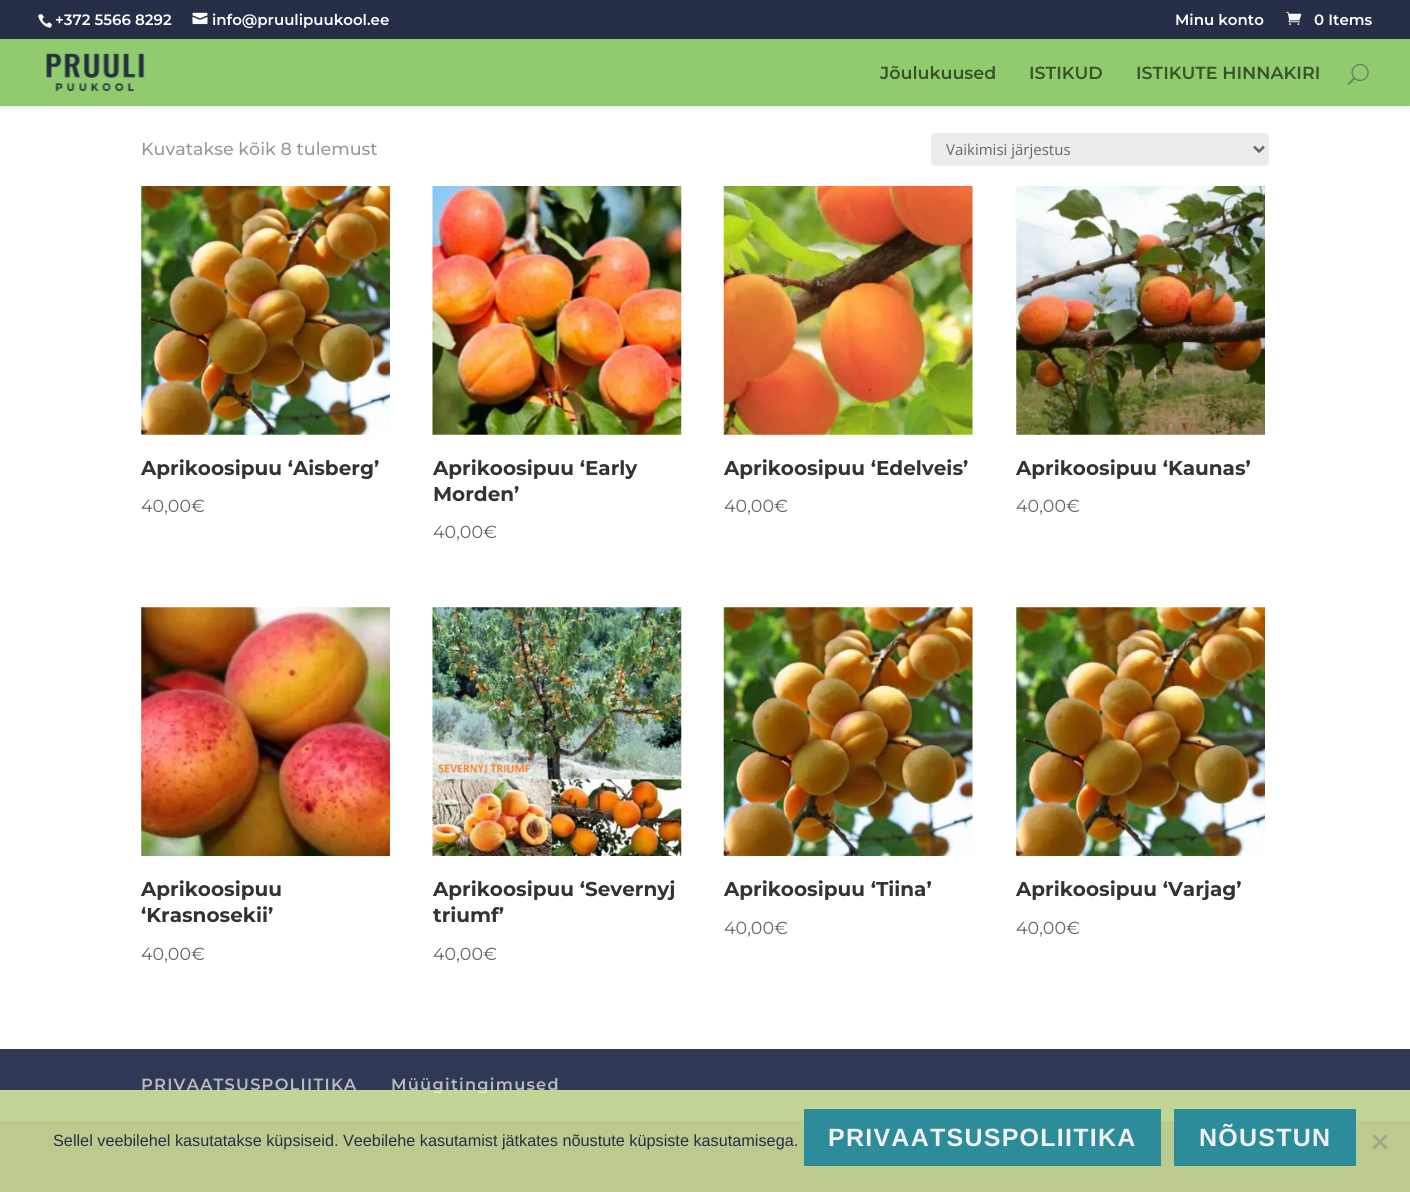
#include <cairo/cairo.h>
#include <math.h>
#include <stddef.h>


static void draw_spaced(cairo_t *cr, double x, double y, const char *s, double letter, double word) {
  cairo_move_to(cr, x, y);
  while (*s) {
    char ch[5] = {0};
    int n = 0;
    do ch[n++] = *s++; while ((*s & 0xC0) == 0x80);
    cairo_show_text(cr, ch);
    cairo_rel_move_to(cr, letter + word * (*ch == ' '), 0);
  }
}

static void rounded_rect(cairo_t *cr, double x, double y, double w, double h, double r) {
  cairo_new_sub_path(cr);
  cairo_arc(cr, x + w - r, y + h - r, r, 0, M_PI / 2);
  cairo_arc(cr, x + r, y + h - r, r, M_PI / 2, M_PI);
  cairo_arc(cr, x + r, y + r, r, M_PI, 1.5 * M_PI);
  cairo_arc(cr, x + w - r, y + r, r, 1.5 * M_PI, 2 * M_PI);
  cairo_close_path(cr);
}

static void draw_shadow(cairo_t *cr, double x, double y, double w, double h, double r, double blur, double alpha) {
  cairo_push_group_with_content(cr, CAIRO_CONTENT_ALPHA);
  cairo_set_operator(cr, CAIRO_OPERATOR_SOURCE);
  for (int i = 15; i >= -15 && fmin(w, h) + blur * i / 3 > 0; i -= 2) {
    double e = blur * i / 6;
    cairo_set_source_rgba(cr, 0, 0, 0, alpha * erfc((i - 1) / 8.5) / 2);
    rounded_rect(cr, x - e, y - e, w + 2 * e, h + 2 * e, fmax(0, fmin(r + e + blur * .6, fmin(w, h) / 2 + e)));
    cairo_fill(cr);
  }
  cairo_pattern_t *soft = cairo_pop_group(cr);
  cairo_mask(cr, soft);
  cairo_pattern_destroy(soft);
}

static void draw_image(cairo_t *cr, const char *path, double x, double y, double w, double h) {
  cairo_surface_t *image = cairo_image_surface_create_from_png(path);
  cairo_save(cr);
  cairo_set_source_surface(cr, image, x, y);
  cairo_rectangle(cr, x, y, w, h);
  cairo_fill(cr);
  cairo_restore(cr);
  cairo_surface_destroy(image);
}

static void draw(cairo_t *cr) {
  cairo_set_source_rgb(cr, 1, 1, 1);
  cairo_paint(cr);
  cairo_set_source_rgb(cr, 0, 0, 0);
  draw_shadow(cr, 0, 39, 1410, 67, 0, 4.5, 0.1);
  cairo_set_source_rgb(cr, 37 / 255.0, 46 / 255.0, 70 / 255.0);
  cairo_rectangle(cr, 0, 0, 1410, 39);
  cairo_fill(cr);
  draw_image(cr, "images/1.png", 38, 14, 14, 14);
  draw_image(cr, "images/2.png", 192, 12, 16, 13);
  draw_image(cr, "images/3.png", 1286, 11, 16, 14);
  cairo_set_source_rgb(cr, 144 / 255.0, 204 / 255.0, 110 / 255.0);
  cairo_rectangle(cr, 0, 39, 1410, 67);
  cairo_fill(cr);
  draw_image(cr, "images/4.png", 46, 53, 99, 39);
  draw_image(cr, "images/5.png", 1347, 63, 22, 23);
  cairo_set_source_rgb(cr, 236 / 255.0, 236 / 255.0, 236 / 255.0);
  rounded_rect(cr, 931, 133, 338, 33, 4);
  cairo_fill(cr);
  cairo_new_path(cr);
  cairo_move_to(cr, 1254, 146.5);
  cairo_line_to(cr, 1259, 151.5);
  cairo_line_to(cr, 1264, 146.5);
  cairo_set_source_rgb(cr, 102 / 255.0, 102 / 255.0, 102 / 255.0);
  cairo_set_line_width(cr, 2.5);
  cairo_stroke(cr);
  draw_image(cr, "images/6.png", 141, 186, 249, 249);
  draw_image(cr, "images/7.png", 432, 186, 250, 249);
  draw_image(cr, "images/8.png", 723, 186, 250, 249);
  draw_image(cr, "images/9.png", 1016, 186, 249, 249);
  draw_image(cr, "images/10.png", 141, 607, 249, 249);
  draw_image(cr, "images/11.png", 432, 607, 250, 249);
  draw_image(cr, "images/12.png", 723, 607, 250, 249);
  draw_image(cr, "images/13.png", 1016, 607, 249, 249);
  cairo_set_source_rgb(cr, 47 / 255.0, 56 / 255.0, 84 / 255.0);
  cairo_rectangle(cr, 0, 1049, 1410, 72);
  cairo_fill(cr);
  cairo_set_source_rgb(cr, 21 / 255.0, 0, 43 / 255.0);
  cairo_rectangle(cr, 0, 1121, 1410, 71);
  cairo_fill(cr);
  cairo_select_font_face(cr, "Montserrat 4 Thin", CAIRO_FONT_SLANT_NORMAL, CAIRO_FONT_WEIGHT_NORMAL);
  cairo_set_font_size(cr, 15);
  cairo_set_source_rgb(cr, 1, 1, 1);
  cairo_move_to(cr, 55, 25);
  cairo_show_text(cr, "+372 5566 8292");
  cairo_move_to(cr, 212, 25);
  cairo_show_text(cr, "info@pruulipuukool.ee");
  cairo_move_to(cr, 1175, 25);
  cairo_show_text(cr, "Minu konto");
  cairo_move_to(cr, 1314, 25);
  cairo_show_text(cr, "0 Items");
  cairo_set_font_size(cr, 17.5);
  cairo_set_source_rgb(cr, 58 / 255.0, 82 / 255.0, 44 / 255.0);
  cairo_move_to(cr, 880, 79);
  cairo_show_text(cr, "Jõulukuused");
  cairo_move_to(cr, 1029, 79);
  cairo_show_text(cr, "ISTIKUD");
  cairo_move_to(cr, 1136, 79);
  cairo_show_text(cr, "ISTIKUTE HINNAKIRI");
  cairo_select_font_face(cr, "Montserrat Thin", CAIRO_FONT_SLANT_NORMAL, CAIRO_FONT_WEIGHT_NORMAL);
  cairo_set_source_rgb(cr, 153 / 255.0, 153 / 255.0, 153 / 255.0);
  cairo_move_to(cr, 141, 155);
  cairo_show_text(cr, "Kuvatakse kõik 8 tulemust");
  cairo_select_font_face(cr, "Open Sans", CAIRO_FONT_SLANT_NORMAL, CAIRO_FONT_WEIGHT_NORMAL);
  cairo_set_font_size(cr, 15);
  cairo_set_source_rgb(cr, 102 / 255.0, 102 / 255.0, 102 / 255.0);
  cairo_move_to(cr, 946, 155);
  cairo_show_text(cr, "Vaikimisi järjestus");
  cairo_select_font_face(cr, "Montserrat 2 Thin", CAIRO_FONT_SLANT_NORMAL, CAIRO_FONT_WEIGHT_NORMAL);
  cairo_set_font_size(cr, 20);
  cairo_set_source_rgb(cr, 51 / 255.0, 51 / 255.0, 51 / 255.0);
  cairo_move_to(cr, 141, 475);
  cairo_show_text(cr, "Aprikoosipuu ‘Aisberg’");
  cairo_select_font_face(cr, "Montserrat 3 Thin", CAIRO_FONT_SLANT_NORMAL, CAIRO_FONT_WEIGHT_NORMAL);
  cairo_set_font_size(cr, 17.5);
  cairo_set_source_rgb(cr, 102 / 255.0, 102 / 255.0, 102 / 255.0);
  cairo_move_to(cr, 141, 512);
  cairo_show_text(cr, "40,00€");
  cairo_select_font_face(cr, "Montserrat 2 Thin", CAIRO_FONT_SLANT_NORMAL, CAIRO_FONT_WEIGHT_NORMAL);
  cairo_set_font_size(cr, 20);
  cairo_set_source_rgb(cr, 51 / 255.0, 51 / 255.0, 51 / 255.0);
  cairo_move_to(cr, 433, 475);
  cairo_show_text(cr, "Aprikoosipuu ‘Early");
  cairo_move_to(cr, 433, 501);
  cairo_show_text(cr, "Morden’");
  cairo_select_font_face(cr, "Montserrat 3 Thin", CAIRO_FONT_SLANT_NORMAL, CAIRO_FONT_WEIGHT_NORMAL);
  cairo_set_font_size(cr, 17.5);
  cairo_set_source_rgb(cr, 102 / 255.0, 102 / 255.0, 102 / 255.0);
  cairo_move_to(cr, 433, 538);
  cairo_show_text(cr, "40,00€");
  cairo_select_font_face(cr, "Montserrat 2 Thin", CAIRO_FONT_SLANT_NORMAL, CAIRO_FONT_WEIGHT_NORMAL);
  cairo_set_font_size(cr, 20);
  cairo_set_source_rgb(cr, 51 / 255.0, 51 / 255.0, 51 / 255.0);
  cairo_move_to(cr, 724, 475);
  cairo_show_text(cr, "Aprikoosipuu ‘Edelveis’");
  cairo_select_font_face(cr, "Montserrat 3 Thin", CAIRO_FONT_SLANT_NORMAL, CAIRO_FONT_WEIGHT_NORMAL);
  cairo_set_font_size(cr, 17.5);
  cairo_set_source_rgb(cr, 102 / 255.0, 102 / 255.0, 102 / 255.0);
  cairo_move_to(cr, 724, 512);
  cairo_show_text(cr, "40,00€");
  cairo_select_font_face(cr, "Montserrat 2 Thin", CAIRO_FONT_SLANT_NORMAL, CAIRO_FONT_WEIGHT_NORMAL);
  cairo_set_font_size(cr, 20);
  cairo_set_source_rgb(cr, 51 / 255.0, 51 / 255.0, 51 / 255.0);
  cairo_move_to(cr, 1016, 475);
  cairo_show_text(cr, "Aprikoosipuu ‘Kaunas’");
  cairo_select_font_face(cr, "Montserrat 3 Thin", CAIRO_FONT_SLANT_NORMAL, CAIRO_FONT_WEIGHT_NORMAL);
  cairo_set_font_size(cr, 17.5);
  cairo_set_source_rgb(cr, 102 / 255.0, 102 / 255.0, 102 / 255.0);
  cairo_move_to(cr, 1016, 512);
  cairo_show_text(cr, "40,00€");
  cairo_select_font_face(cr, "Montserrat 2 Thin", CAIRO_FONT_SLANT_NORMAL, CAIRO_FONT_WEIGHT_NORMAL);
  cairo_set_font_size(cr, 20);
  cairo_set_source_rgb(cr, 51 / 255.0, 51 / 255.0, 51 / 255.0);
  cairo_move_to(cr, 141, 896);
  cairo_show_text(cr, "Aprikoosipuu");
  cairo_move_to(cr, 141, 922);
  cairo_show_text(cr, "‘Krasnosekii’");
  cairo_select_font_face(cr, "Montserrat 3 Thin", CAIRO_FONT_SLANT_NORMAL, CAIRO_FONT_WEIGHT_NORMAL);
  cairo_set_font_size(cr, 17.5);
  cairo_set_source_rgb(cr, 102 / 255.0, 102 / 255.0, 102 / 255.0);
  cairo_move_to(cr, 141, 960);
  cairo_show_text(cr, "40,00€");
  cairo_select_font_face(cr, "Montserrat 2 Thin", CAIRO_FONT_SLANT_NORMAL, CAIRO_FONT_WEIGHT_NORMAL);
  cairo_set_font_size(cr, 20);
  cairo_set_source_rgb(cr, 51 / 255.0, 51 / 255.0, 51 / 255.0);
  cairo_move_to(cr, 433, 896);
  cairo_show_text(cr, "Aprikoosipuu ‘Severnyj");
  cairo_move_to(cr, 433, 922);
  cairo_show_text(cr, "triumf’");
  cairo_select_font_face(cr, "Montserrat 3 Thin", CAIRO_FONT_SLANT_NORMAL, CAIRO_FONT_WEIGHT_NORMAL);
  cairo_set_font_size(cr, 17.5);
  cairo_set_source_rgb(cr, 102 / 255.0, 102 / 255.0, 102 / 255.0);
  cairo_move_to(cr, 433, 960);
  cairo_show_text(cr, "40,00€");
  cairo_select_font_face(cr, "Montserrat 2 Thin", CAIRO_FONT_SLANT_NORMAL, CAIRO_FONT_WEIGHT_NORMAL);
  cairo_set_font_size(cr, 20);
  cairo_set_source_rgb(cr, 51 / 255.0, 51 / 255.0, 51 / 255.0);
  cairo_move_to(cr, 724, 896);
  cairo_show_text(cr, "Aprikoosipuu ‘Tiina’");
  cairo_select_font_face(cr, "Montserrat 3 Thin", CAIRO_FONT_SLANT_NORMAL, CAIRO_FONT_WEIGHT_NORMAL);
  cairo_set_font_size(cr, 17.5);
  cairo_set_source_rgb(cr, 102 / 255.0, 102 / 255.0, 102 / 255.0);
  cairo_move_to(cr, 724, 934);
  cairo_show_text(cr, "40,00€");
  cairo_select_font_face(cr, "Montserrat 2 Thin", CAIRO_FONT_SLANT_NORMAL, CAIRO_FONT_WEIGHT_NORMAL);
  cairo_set_font_size(cr, 20);
  cairo_set_source_rgb(cr, 51 / 255.0, 51 / 255.0, 51 / 255.0);
  cairo_move_to(cr, 1016, 896);
  cairo_show_text(cr, "Aprikoosipuu ‘Varjag’");
  cairo_select_font_face(cr, "Montserrat 3 Thin", CAIRO_FONT_SLANT_NORMAL, CAIRO_FONT_WEIGHT_NORMAL);
  cairo_set_font_size(cr, 17.5);
  cairo_set_source_rgb(cr, 102 / 255.0, 102 / 255.0, 102 / 255.0);
  cairo_move_to(cr, 1016, 934);
  cairo_show_text(cr, "40,00€");
  cairo_select_font_face(cr, "Montserrat 4 Thin", CAIRO_FONT_SLANT_NORMAL, CAIRO_FONT_WEIGHT_NORMAL);
  cairo_set_font_size(cr, 16.25);
  cairo_set_source_rgb(cr, 187 / 255.0, 187 / 255.0, 187 / 255.0);
  draw_spaced(cr, 141, 1090, "PRIVAATSUSPOLIITIKA", 1.25, 0);
  draw_spaced(cr, 391, 1090, "Müügitingimused", 1.25, 0);
  cairo_set_source_rgba(cr, 228 / 255.0, 252 / 255.0, 166 / 255.0, 0.8);
  cairo_rectangle(cr, 0, 1090, 1410, 102);
  cairo_fill(cr);
  cairo_select_font_face(cr, "Liberation Sans", CAIRO_FONT_SLANT_NORMAL, CAIRO_FONT_WEIGHT_NORMAL);
  cairo_set_source_rgb(cr, 38 / 255.0, 46 / 255.0, 71 / 255.0);
  cairo_move_to(cr, 53, 1146);
  cairo_show_text(cr, "Sellel veebilehel kasutatakse küpsiseid. Veebilehe kasutamist jätkates nõustute küpsiste kasutamisega.");
  cairo_set_source_rgb(cr, 44 / 255.0, 140 / 255.0, 153 / 255.0);
  cairo_rectangle(cr, 804, 1109, 357, 57);
  cairo_fill(cr);
  cairo_select_font_face(cr, "Liberation Sans", CAIRO_FONT_SLANT_NORMAL, CAIRO_FONT_WEIGHT_BOLD);
  cairo_set_font_size(cr, 25);
  cairo_set_source_rgb(cr, 240 / 255.0, 239 / 255.0, 244 / 255.0);
  draw_spaced(cr, 828, 1146, "PRIVAATSUSPOLIITIKA", 1.25, 0);
  cairo_set_source_rgb(cr, 44 / 255.0, 140 / 255.0, 153 / 255.0);
  cairo_rectangle(cr, 1174, 1109, 182, 57);
  cairo_fill(cr);
  cairo_set_source_rgb(cr, 240 / 255.0, 239 / 255.0, 244 / 255.0);
  draw_spaced(cr, 1199, 1146, "NÕUSTUN", 1.25, 0);
  cairo_set_source_rgb(cr, 157 / 255.0, 165 / 255.0, 135 / 255.0);
  cairo_new_path(cr);
  cairo_move_to(cr, 1385.5, 1134.5);
  cairo_line_to(cr, 1387.5, 1136);
  cairo_line_to(cr, 1374.5, 1149.5);
  cairo_line_to(cr, 1372.5, 1147.5);
  cairo_close_path(cr);
  cairo_fill(cr);
  cairo_new_path(cr);
  cairo_move_to(cr, 1372.5, 1136);
  cairo_line_to(cr, 1374.5, 1134.5);
  cairo_line_to(cr, 1387.5, 1147.5);
  cairo_line_to(cr, 1385.5, 1149.5);
  cairo_close_path(cr);
  cairo_fill(cr);
}

int main(void) {
  cairo_surface_t *surface = cairo_image_surface_create(CAIRO_FORMAT_RGB24, 1410, 1192);
  cairo_t *cr = cairo_create(surface);
  cairo_font_options_t *options = cairo_font_options_create();
  cairo_font_options_set_hint_metrics(options, CAIRO_HINT_METRICS_OFF);
  cairo_font_options_set_hint_style(options, CAIRO_HINT_STYLE_NONE);
  cairo_set_font_options(cr, options);
  cairo_set_miter_limit(cr, 4);
  draw(cr);
  cairo_surface_write_to_png(surface, "out.png");
  cairo_font_options_destroy(options);
  cairo_destroy(cr);
  cairo_surface_destroy(surface);
  return 0;
}
